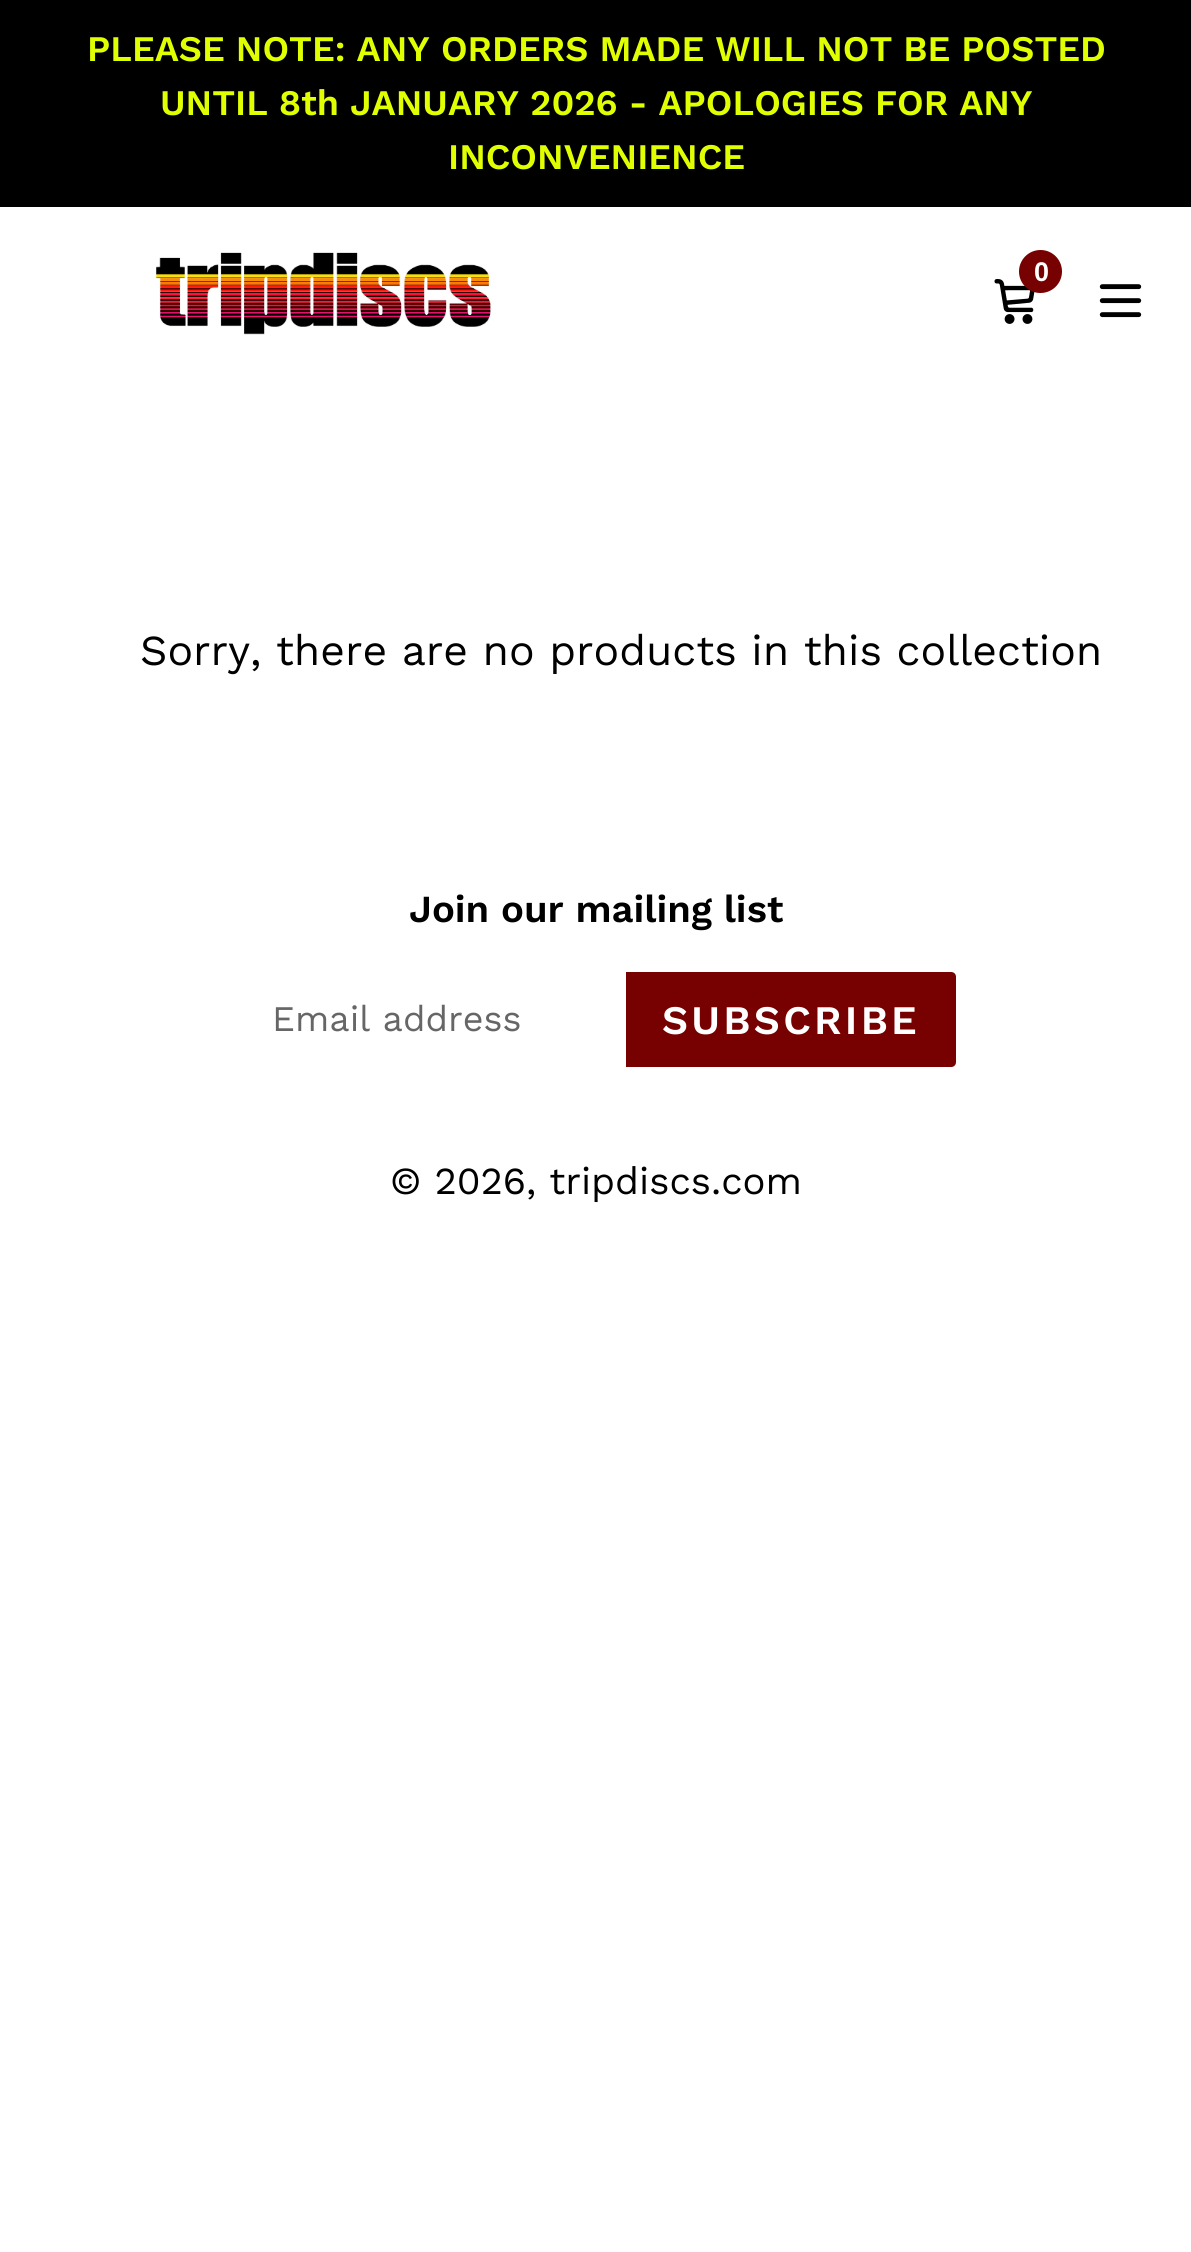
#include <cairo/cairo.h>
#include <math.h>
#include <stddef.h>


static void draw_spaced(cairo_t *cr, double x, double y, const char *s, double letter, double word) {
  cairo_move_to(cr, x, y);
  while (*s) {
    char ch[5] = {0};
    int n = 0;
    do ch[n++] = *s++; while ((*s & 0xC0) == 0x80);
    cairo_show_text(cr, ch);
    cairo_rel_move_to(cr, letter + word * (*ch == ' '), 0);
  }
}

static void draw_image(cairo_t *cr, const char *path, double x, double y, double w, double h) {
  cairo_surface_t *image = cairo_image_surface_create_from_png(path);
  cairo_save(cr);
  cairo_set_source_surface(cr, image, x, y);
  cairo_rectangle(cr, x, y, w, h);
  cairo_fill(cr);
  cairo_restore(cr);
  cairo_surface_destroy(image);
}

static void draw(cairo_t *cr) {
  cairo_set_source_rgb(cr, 1, 1, 1);
  cairo_paint(cr);
  cairo_set_source_rgb(cr, 0, 0, 0);
  cairo_rectangle(cr, 0, 0, 1191, 207);
  cairo_fill(cr);
  draw_image(cr, "images/1.png", 155, 252, 338, 83);
  draw_image(cr, "images/2.png", 994, 279, 41, 45);
  cairo_set_source_rgb(cr, 119 / 255.0, 0, 0);
  cairo_arc(cr, 1040.5, 271.5, 21.5, 0, 2 * M_PI);
  cairo_fill(cr);
  draw_image(cr, "images/3.png", 1099, 284, 43, 34);
  cairo_new_path(cr);
  cairo_move_to(cr, 626, 972);
  cairo_line_to(cr, 951, 972);
  cairo_curve_to(cr, 954, 972, 956, 974, 956, 977);
  cairo_line_to(cr, 956, 1062);
  cairo_curve_to(cr, 956, 1065, 954, 1067, 951, 1067);
  cairo_line_to(cr, 626, 1067);
  cairo_close_path(cr);
  cairo_fill(cr);
  cairo_select_font_face(cr, "Work Sans SemiBold", CAIRO_FONT_SLANT_NORMAL, CAIRO_FONT_WEIGHT_NORMAL);
  cairo_set_font_size(cr, 36);
  cairo_set_source_rgb(cr, 224 / 255.0, 1, 0);
  cairo_move_to(cr, 87, 61);
  cairo_show_text(cr, "PLEASE NOTE: ANY ORDERS MADE WILL NOT BE POSTED");
  cairo_move_to(cr, 160, 115);
  cairo_show_text(cr, "UNTIL 8th JANUARY 2026 - APOLOGIES FOR ANY");
  cairo_move_to(cr, 448, 169);
  cairo_show_text(cr, "INCONVENIENCE");
  cairo_select_font_face(cr, "Liberation Sans", CAIRO_FONT_SLANT_NORMAL, CAIRO_FONT_WEIGHT_BOLD);
  cairo_set_font_size(cr, 27);
  cairo_set_source_rgb(cr, 1, 1, 1);
  cairo_move_to(cr, 1034, 281);
  cairo_show_text(cr, "0");
  cairo_select_font_face(cr, "Work Sans", CAIRO_FONT_SLANT_NORMAL, CAIRO_FONT_WEIGHT_NORMAL);
  cairo_set_font_size(cr, 42.75);
  cairo_set_source_rgb(cr, 0, 0, 0);
  cairo_move_to(cr, 140, 665);
  cairo_show_text(cr, "Sorry, there are no products in this collection");
  cairo_select_font_face(cr, "Work Sans SemiBold", CAIRO_FONT_SLANT_NORMAL, CAIRO_FONT_WEIGHT_NORMAL);
  cairo_set_font_size(cr, 38.25);
  cairo_move_to(cr, 409, 922);
  cairo_show_text(cr, "Join our mailing list");
  cairo_select_font_face(cr, "Work Sans", CAIRO_FONT_SLANT_NORMAL, CAIRO_FONT_WEIGHT_NORMAL);
  cairo_set_font_size(cr, 36);
  cairo_set_source_rgb(cr, 102 / 255.0, 102 / 255.0, 102 / 255.0);
  cairo_move_to(cr, 272, 1031);
  cairo_show_text(cr, "Email address");
  cairo_select_font_face(cr, "Work Sans SemiBold", CAIRO_FONT_SLANT_NORMAL, CAIRO_FONT_WEIGHT_NORMAL);
  cairo_set_font_size(cr, 40.5);
  cairo_set_source_rgb(cr, 1, 1, 1);
  draw_spaced(cr, 662, 1034, "SUBSCRIBE", 3.25, 0);
  cairo_select_font_face(cr, "Work Sans", CAIRO_FONT_SLANT_NORMAL, CAIRO_FONT_WEIGHT_NORMAL);
  cairo_set_font_size(cr, 38.25);
  cairo_set_source_rgb(cr, 0, 0, 0);
  cairo_move_to(cr, 390, 1194);
  cairo_show_text(cr, "© 2026, tripdiscs.com");
}

int main(void) {
  cairo_surface_t *surface = cairo_image_surface_create(CAIRO_FORMAT_RGB24, 1191, 2252);
  cairo_t *cr = cairo_create(surface);
  cairo_font_options_t *options = cairo_font_options_create();
  cairo_font_options_set_hint_metrics(options, CAIRO_HINT_METRICS_OFF);
  cairo_font_options_set_hint_style(options, CAIRO_HINT_STYLE_NONE);
  cairo_set_font_options(cr, options);
  cairo_set_miter_limit(cr, 4);
  draw(cr);
  cairo_surface_write_to_png(surface, "out.png");
  cairo_font_options_destroy(options);
  cairo_destroy(cr);
  cairo_surface_destroy(surface);
  return 0;
}
